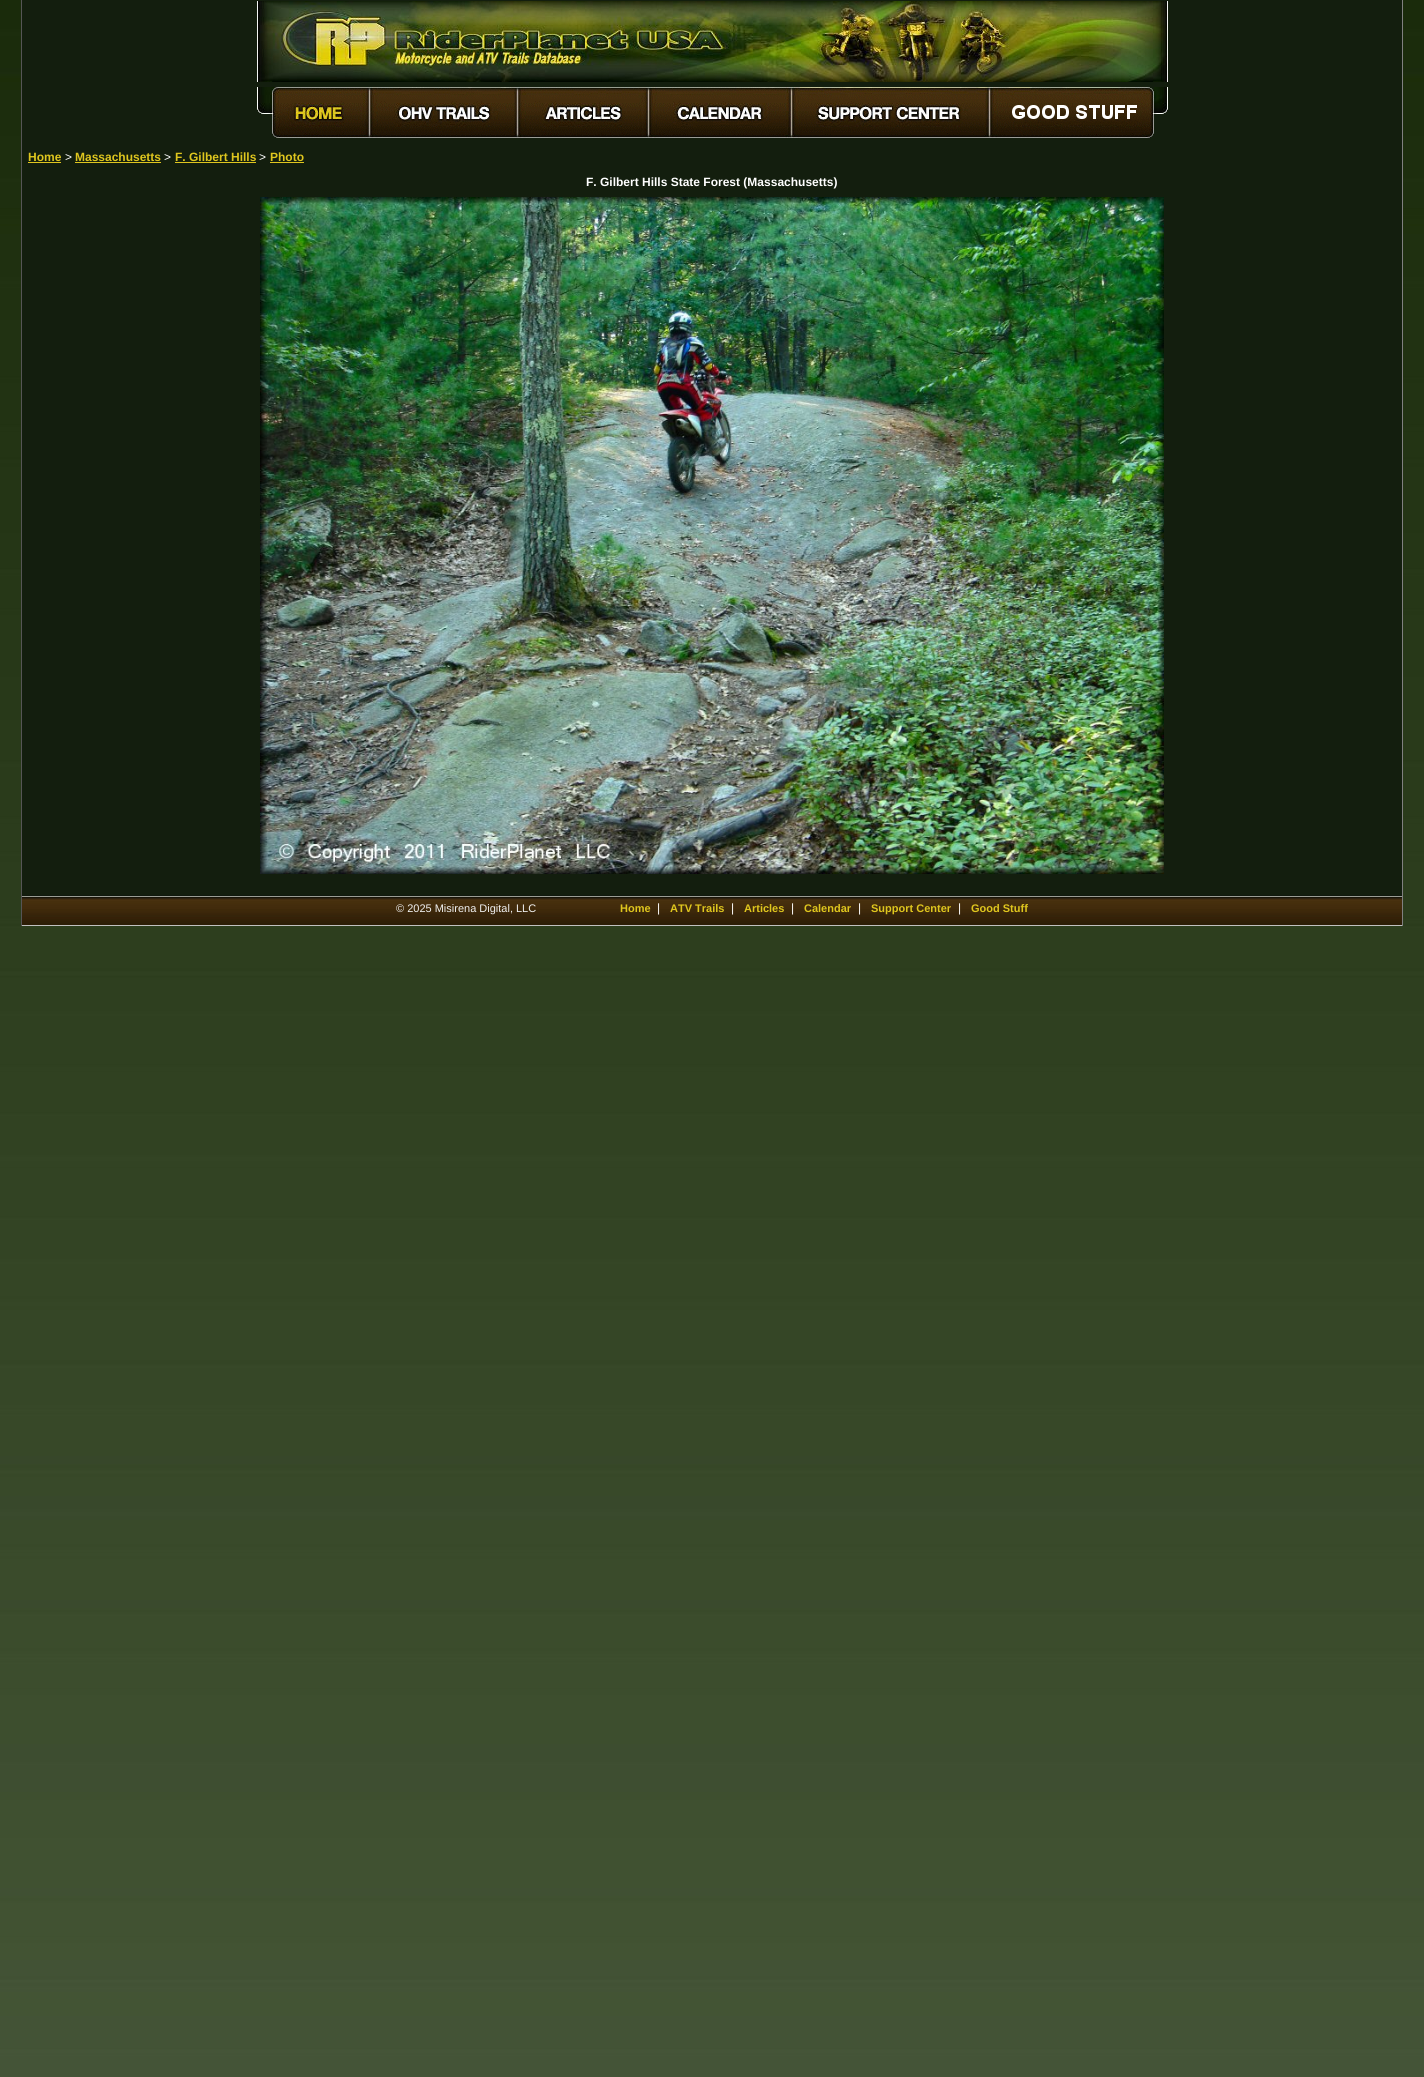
#include <cairo/cairo.h>
#include <math.h>
#include <stddef.h>


static void draw_image(cairo_t *cr, const char *path, double x, double y, double w, double h) {
  cairo_surface_t *image = cairo_image_surface_create_from_png(path);
  cairo_save(cr);
  cairo_set_source_surface(cr, image, x, y);
  cairo_rectangle(cr, x, y, w, h);
  cairo_fill(cr);
  cairo_restore(cr);
  cairo_surface_destroy(image);
}

static void draw(cairo_t *cr) {
  cairo_set_source_rgb(cr, 1, 1, 1);
  cairo_paint(cr);
  draw_image(cr, "images/1.png", 0, 0, 1424, 2077);
  cairo_set_source_rgb(cr, 19 / 255.0, 30 / 255.0, 14 / 255.0);
  cairo_rectangle(cr, 22, 0, 1380, 895);
  cairo_fill(cr);
  cairo_set_source_rgb(cr, 128 / 255.0, 128 / 255.0, 128 / 255.0);
  cairo_rectangle(cr, 1402, 0, 1, 926);
  cairo_fill(cr);
  cairo_set_source_rgb(cr, 85 / 255.0, 85 / 255.0, 85 / 255.0);
  cairo_rectangle(cr, 21, 0, 1, 926);
  cairo_fill(cr);
  draw_image(cr, "images/2.png", 257, 1, 911, 81);
  draw_image(cr, "images/3.png", 257, 87, 15, 27);
  draw_image(cr, "images/4.png", 272, 87, 98, 51);
  draw_image(cr, "images/5.png", 370, 87, 148, 51);
  draw_image(cr, "images/6.png", 518, 87, 131, 51);
  draw_image(cr, "images/7.png", 649, 87, 143, 51);
  draw_image(cr, "images/8.png", 792, 87, 198, 51);
  draw_image(cr, "images/9.png", 990, 87, 164, 51);
  draw_image(cr, "images/10.png", 1154, 87, 14, 27);
  cairo_set_source_rgb(cr, 223 / 255.0, 198 / 255.0, 30 / 255.0);
  cairo_rectangle(cr, 28, 162, 33, 1);
  cairo_fill(cr);
  cairo_rectangle(cr, 75, 162, 86, 1);
  cairo_fill(cr);
  cairo_rectangle(cr, 175, 162, 81, 1);
  cairo_fill(cr);
  cairo_rectangle(cr, 270, 162, 34, 1);
  cairo_fill(cr);
  draw_image(cr, "images/11.png", 260, 197, 904, 677);
  draw_image(cr, "images/12.png", 22, 895, 1380, 30);
  cairo_set_source_rgb(cr, 192 / 255.0, 192 / 255.0, 192 / 255.0);
  cairo_rectangle(cr, 22, 925, 1380, 1);
  cairo_fill(cr);
  cairo_select_font_face(cr, "Liberation Sans", CAIRO_FONT_SLANT_NORMAL, CAIRO_FONT_WEIGHT_BOLD);
  cairo_set_font_size(cr, 12);
  cairo_set_source_rgb(cr, 223 / 255.0, 198 / 255.0, 30 / 255.0);
  cairo_move_to(cr, 28, 161);
  cairo_show_text(cr, "Home");
  cairo_select_font_face(cr, "Liberation Sans", CAIRO_FONT_SLANT_NORMAL, CAIRO_FONT_WEIGHT_NORMAL);
  cairo_set_source_rgb(cr, 1, 1, 1);
  cairo_move_to(cr, 65, 161);
  cairo_show_text(cr, ">");
  cairo_select_font_face(cr, "Liberation Sans", CAIRO_FONT_SLANT_NORMAL, CAIRO_FONT_WEIGHT_BOLD);
  cairo_set_source_rgb(cr, 223 / 255.0, 198 / 255.0, 30 / 255.0);
  cairo_move_to(cr, 75, 161);
  cairo_show_text(cr, "Massachusetts");
  cairo_select_font_face(cr, "Liberation Sans", CAIRO_FONT_SLANT_NORMAL, CAIRO_FONT_WEIGHT_NORMAL);
  cairo_set_source_rgb(cr, 1, 1, 1);
  cairo_move_to(cr, 164, 161);
  cairo_show_text(cr, ">");
  cairo_select_font_face(cr, "Liberation Sans", CAIRO_FONT_SLANT_NORMAL, CAIRO_FONT_WEIGHT_BOLD);
  cairo_set_source_rgb(cr, 223 / 255.0, 198 / 255.0, 30 / 255.0);
  cairo_move_to(cr, 175, 161);
  cairo_show_text(cr, "F. Gilbert Hills");
  cairo_select_font_face(cr, "Liberation Sans", CAIRO_FONT_SLANT_NORMAL, CAIRO_FONT_WEIGHT_NORMAL);
  cairo_set_source_rgb(cr, 1, 1, 1);
  cairo_move_to(cr, 259, 161);
  cairo_show_text(cr, ">");
  cairo_select_font_face(cr, "Liberation Sans", CAIRO_FONT_SLANT_NORMAL, CAIRO_FONT_WEIGHT_BOLD);
  cairo_set_source_rgb(cr, 223 / 255.0, 198 / 255.0, 30 / 255.0);
  cairo_move_to(cr, 270, 161);
  cairo_show_text(cr, "Photo");
  cairo_set_source_rgb(cr, 1, 1, 1);
  cairo_move_to(cr, 586, 186);
  cairo_show_text(cr, "F. Gilbert Hills State Forest (Massachusetts)");
  cairo_select_font_face(cr, "Liberation Sans", CAIRO_FONT_SLANT_NORMAL, CAIRO_FONT_WEIGHT_NORMAL);
  cairo_set_font_size(cr, 11);
  cairo_set_source_rgb(cr, 240 / 255.0, 240 / 255.0, 240 / 255.0);
  cairo_move_to(cr, 396, 912);
  cairo_show_text(cr, "© 2025 Misirena Digital, LLC");
  cairo_select_font_face(cr, "Liberation Sans", CAIRO_FONT_SLANT_NORMAL, CAIRO_FONT_WEIGHT_BOLD);
  cairo_set_source_rgb(cr, 223 / 255.0, 198 / 255.0, 30 / 255.0);
  cairo_move_to(cr, 620, 912);
  cairo_show_text(cr, "Home");
  cairo_select_font_face(cr, "Liberation Sans", CAIRO_FONT_SLANT_NORMAL, CAIRO_FONT_WEIGHT_NORMAL);
  cairo_set_font_size(cr, 12);
  cairo_set_source_rgb(cr, 1, 1, 1);
  cairo_move_to(cr, 657, 912);
  cairo_show_text(cr, "|");
  cairo_select_font_face(cr, "Liberation Sans", CAIRO_FONT_SLANT_NORMAL, CAIRO_FONT_WEIGHT_BOLD);
  cairo_set_font_size(cr, 11);
  cairo_set_source_rgb(cr, 223 / 255.0, 198 / 255.0, 30 / 255.0);
  cairo_move_to(cr, 670, 912);
  cairo_show_text(cr, "ATV Trails");
  cairo_select_font_face(cr, "Liberation Sans", CAIRO_FONT_SLANT_NORMAL, CAIRO_FONT_WEIGHT_NORMAL);
  cairo_set_font_size(cr, 12);
  cairo_set_source_rgb(cr, 1, 1, 1);
  cairo_move_to(cr, 731, 912);
  cairo_show_text(cr, "|");
  cairo_select_font_face(cr, "Liberation Sans", CAIRO_FONT_SLANT_NORMAL, CAIRO_FONT_WEIGHT_BOLD);
  cairo_set_font_size(cr, 11);
  cairo_set_source_rgb(cr, 223 / 255.0, 198 / 255.0, 30 / 255.0);
  cairo_move_to(cr, 744, 912);
  cairo_show_text(cr, "Articles");
  cairo_select_font_face(cr, "Liberation Sans", CAIRO_FONT_SLANT_NORMAL, CAIRO_FONT_WEIGHT_NORMAL);
  cairo_set_font_size(cr, 12);
  cairo_set_source_rgb(cr, 1, 1, 1);
  cairo_move_to(cr, 791, 912);
  cairo_show_text(cr, "|");
  cairo_select_font_face(cr, "Liberation Sans", CAIRO_FONT_SLANT_NORMAL, CAIRO_FONT_WEIGHT_BOLD);
  cairo_set_font_size(cr, 11);
  cairo_set_source_rgb(cr, 223 / 255.0, 198 / 255.0, 30 / 255.0);
  cairo_move_to(cr, 804, 912);
  cairo_show_text(cr, "Calendar");
  cairo_select_font_face(cr, "Liberation Sans", CAIRO_FONT_SLANT_NORMAL, CAIRO_FONT_WEIGHT_NORMAL);
  cairo_set_font_size(cr, 12);
  cairo_set_source_rgb(cr, 1, 1, 1);
  cairo_move_to(cr, 858, 912);
  cairo_show_text(cr, "|");
  cairo_select_font_face(cr, "Liberation Sans", CAIRO_FONT_SLANT_NORMAL, CAIRO_FONT_WEIGHT_BOLD);
  cairo_set_font_size(cr, 11);
  cairo_set_source_rgb(cr, 223 / 255.0, 198 / 255.0, 30 / 255.0);
  cairo_move_to(cr, 871, 912);
  cairo_show_text(cr, "Support Center");
  cairo_select_font_face(cr, "Liberation Sans", CAIRO_FONT_SLANT_NORMAL, CAIRO_FONT_WEIGHT_NORMAL);
  cairo_set_font_size(cr, 12);
  cairo_set_source_rgb(cr, 1, 1, 1);
  cairo_move_to(cr, 958, 912);
  cairo_show_text(cr, "|");
  cairo_select_font_face(cr, "Liberation Sans", CAIRO_FONT_SLANT_NORMAL, CAIRO_FONT_WEIGHT_BOLD);
  cairo_set_font_size(cr, 11);
  cairo_set_source_rgb(cr, 223 / 255.0, 198 / 255.0, 30 / 255.0);
  cairo_move_to(cr, 971, 912);
  cairo_show_text(cr, "Good Stuff");
}

int main(void) {
  cairo_surface_t *surface = cairo_image_surface_create(CAIRO_FORMAT_RGB24, 1424, 2077);
  cairo_t *cr = cairo_create(surface);
  cairo_font_options_t *options = cairo_font_options_create();
  cairo_font_options_set_hint_metrics(options, CAIRO_HINT_METRICS_OFF);
  cairo_font_options_set_hint_style(options, CAIRO_HINT_STYLE_NONE);
  cairo_set_font_options(cr, options);
  cairo_set_miter_limit(cr, 4);
  draw(cr);
  cairo_surface_write_to_png(surface, "out.png");
  cairo_font_options_destroy(options);
  cairo_destroy(cr);
  cairo_surface_destroy(surface);
  return 0;
}
